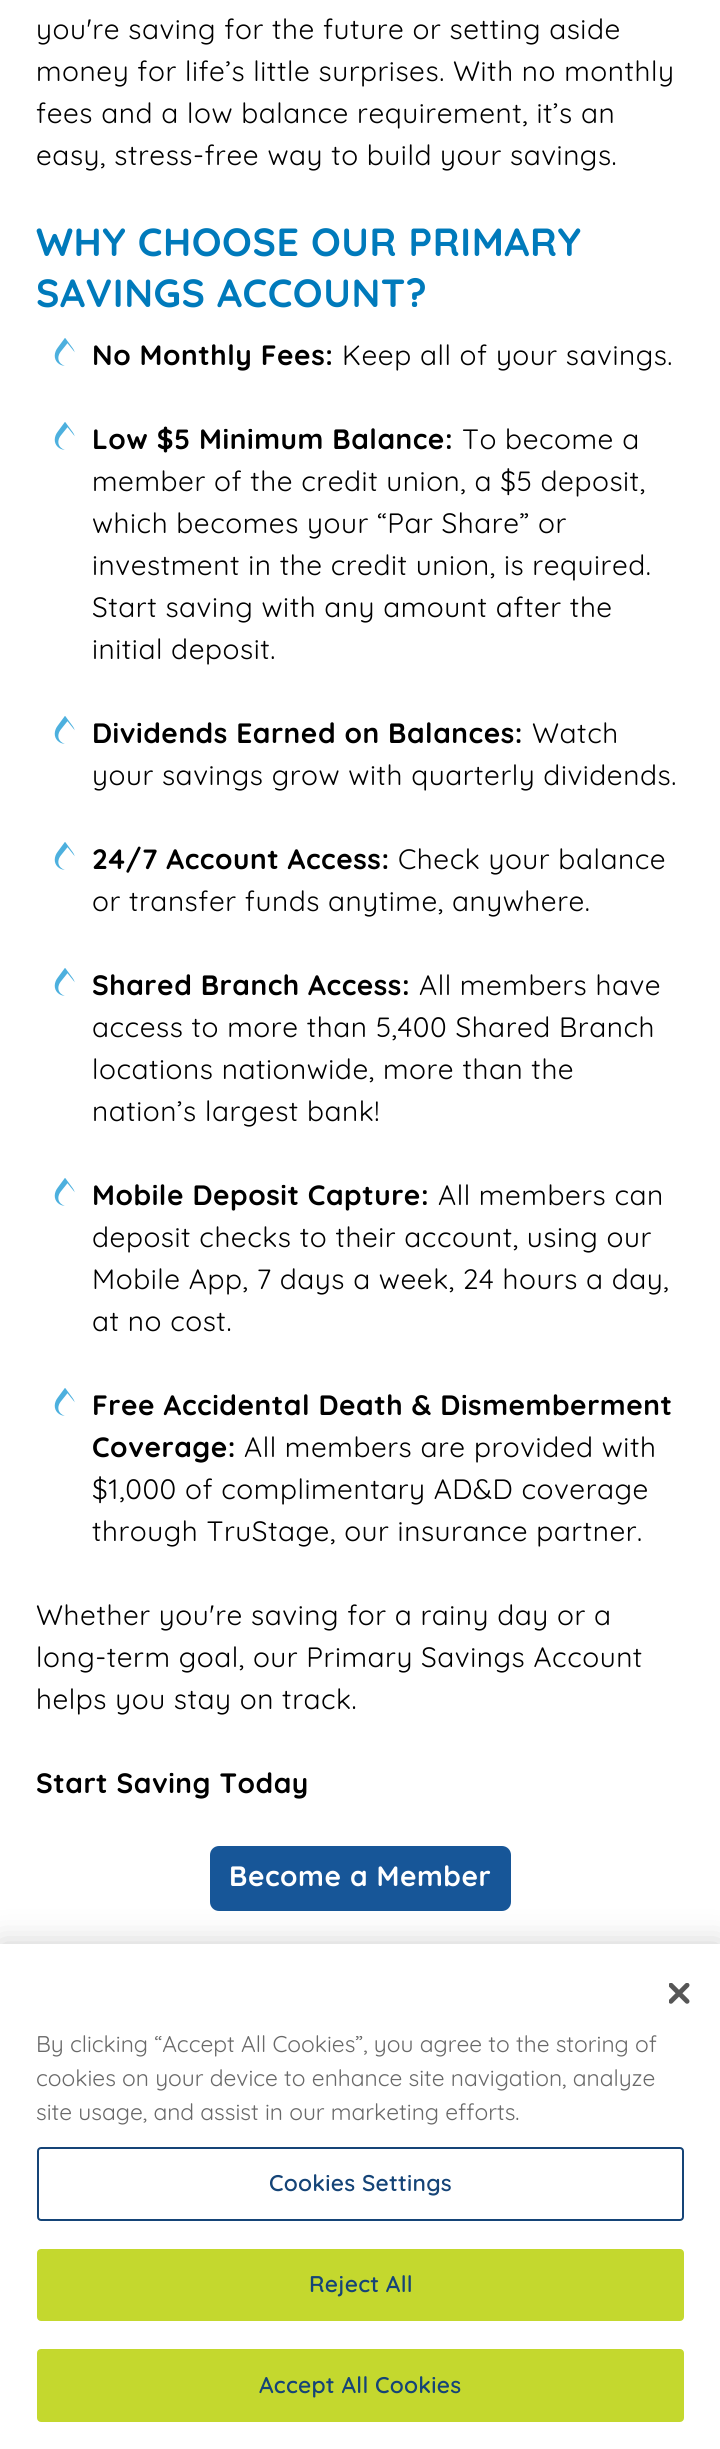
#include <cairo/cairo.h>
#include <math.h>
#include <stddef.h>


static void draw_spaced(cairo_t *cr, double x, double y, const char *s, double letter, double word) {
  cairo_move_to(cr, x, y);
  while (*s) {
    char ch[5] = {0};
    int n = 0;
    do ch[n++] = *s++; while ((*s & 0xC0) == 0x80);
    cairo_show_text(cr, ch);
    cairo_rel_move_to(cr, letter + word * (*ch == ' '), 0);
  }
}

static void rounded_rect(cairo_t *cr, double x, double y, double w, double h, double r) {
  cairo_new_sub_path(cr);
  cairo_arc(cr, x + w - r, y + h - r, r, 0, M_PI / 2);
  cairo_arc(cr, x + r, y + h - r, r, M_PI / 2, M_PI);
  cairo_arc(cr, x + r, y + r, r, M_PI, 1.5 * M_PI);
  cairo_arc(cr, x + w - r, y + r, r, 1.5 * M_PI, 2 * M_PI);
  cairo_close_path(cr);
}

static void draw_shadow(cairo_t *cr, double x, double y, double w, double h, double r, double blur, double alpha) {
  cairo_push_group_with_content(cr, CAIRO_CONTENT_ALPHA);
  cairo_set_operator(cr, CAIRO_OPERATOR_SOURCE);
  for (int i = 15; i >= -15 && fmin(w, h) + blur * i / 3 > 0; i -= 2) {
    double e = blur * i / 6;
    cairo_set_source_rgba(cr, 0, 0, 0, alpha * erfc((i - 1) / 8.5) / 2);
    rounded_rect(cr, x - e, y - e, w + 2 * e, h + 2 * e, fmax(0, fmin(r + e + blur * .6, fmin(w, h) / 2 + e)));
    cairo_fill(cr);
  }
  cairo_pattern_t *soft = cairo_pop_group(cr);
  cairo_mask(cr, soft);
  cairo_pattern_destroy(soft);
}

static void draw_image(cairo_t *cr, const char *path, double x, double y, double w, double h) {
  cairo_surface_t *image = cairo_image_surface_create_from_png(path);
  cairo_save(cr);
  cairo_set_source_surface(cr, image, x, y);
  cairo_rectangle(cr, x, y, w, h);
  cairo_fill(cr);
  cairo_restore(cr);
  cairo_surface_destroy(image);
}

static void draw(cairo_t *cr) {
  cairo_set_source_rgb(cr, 1, 1, 1);
  cairo_paint(cr);
  draw_image(cr, "images/1.png", 54, 338, 21, 28);
  draw_image(cr, "images/1.png", 54, 422, 21, 28);
  draw_image(cr, "images/1.png", 54, 716, 21, 28);
  draw_image(cr, "images/1.png", 54, 842, 21, 28);
  draw_image(cr, "images/1.png", 54, 968, 21, 28);
  draw_image(cr, "images/1.png", 54, 1178, 21, 28);
  draw_image(cr, "images/1.png", 54, 1388, 21, 28);
  cairo_set_source_rgb(cr, 23 / 255.0, 86 / 255.0, 152 / 255.0);
  rounded_rect(cr, 211, 1847, 299, 63, 8);
  cairo_fill_preserve(cr);
  cairo_stroke(cr);
  cairo_set_source_rgb(cr, 0, 0, 0);
  draw_shadow(cr, 0, 1944, 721, 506, 0, 16, 0.2);
  cairo_set_source_rgb(cr, 1, 1, 1);
  cairo_rectangle(cr, 0, 1944, 720, 505);
  cairo_fill(cr);
  draw_image(cr, "images/2.png", 669, 1983, 21, 21);
  rounded_rect(cr, 38, 2148, 645, 72, 3);
  cairo_set_source_rgb(cr, 21 / 255.0, 68 / 255.0, 119 / 255.0);
  cairo_stroke(cr);
  cairo_set_source_rgb(cr, 196 / 255.0, 216 / 255.0, 46 / 255.0);
  rounded_rect(cr, 38, 2250, 645, 70, 3);
  cairo_fill_preserve(cr);
  cairo_stroke(cr);
  rounded_rect(cr, 38, 2350, 645, 71, 3);
  cairo_fill_preserve(cr);
  cairo_stroke(cr);
  cairo_select_font_face(cr, "Quicksand", CAIRO_FONT_SLANT_NORMAL, CAIRO_FONT_WEIGHT_NORMAL);
  cairo_set_font_size(cr, 28);
  cairo_set_source_rgb(cr, 0, 0, 0);
  draw_spaced(cr, 36, 39, "you're saving for the future or setting aside", 0.55, 0);
  draw_spaced(cr, 36, 81, "money for life’s little surprises. With no monthly", 0.55, 0);
  draw_spaced(cr, 36, 123, "fees and a low balance requirement, it’s an", 0.55, 0);
  draw_spaced(cr, 36, 165, "easy, stress-free way to build your savings.", 0.55, 0);
  cairo_select_font_face(cr, "Quicksand", CAIRO_FONT_SLANT_NORMAL, CAIRO_FONT_WEIGHT_BOLD);
  cairo_set_font_size(cr, 39.25);
  cairo_set_source_rgb(cr, 0, 122 / 255.0, 187 / 255.0);
  draw_spaced(cr, 36, 256, "WHY CHOOSE OUR PRIMARY", 0.55, 0);
  draw_spaced(cr, 36, 307, "SAVINGS ACCOUNT?", 0.55, 0);
  cairo_set_font_size(cr, 28);
  cairo_set_source_rgb(cr, 0, 0, 0);
  draw_spaced(cr, 92, 365, "No Monthly Fees:", 0.55, 0);
  cairo_select_font_face(cr, "Quicksand", CAIRO_FONT_SLANT_NORMAL, CAIRO_FONT_WEIGHT_NORMAL);
  draw_spaced(cr, 342, 365, "Keep all of your savings.", 0.55, 0);
  cairo_select_font_face(cr, "Quicksand", CAIRO_FONT_SLANT_NORMAL, CAIRO_FONT_WEIGHT_BOLD);
  draw_spaced(cr, 92, 449, "Low $5 Minimum Balance:", 0.55, 0);
  cairo_select_font_face(cr, "Quicksand", CAIRO_FONT_SLANT_NORMAL, CAIRO_FONT_WEIGHT_NORMAL);
  draw_spaced(cr, 462, 449, "To become a", 0.55, 0);
  draw_spaced(cr, 92, 491, "member of the credit union, a $5 deposit,", 0.55, 0);
  draw_spaced(cr, 92, 533, "which becomes your “Par Share” or", 0.55, 0);
  draw_spaced(cr, 92, 575, "investment in the credit union, is required.", 0.55, 0);
  draw_spaced(cr, 92, 617, "Start saving with any amount after the", 0.55, 0);
  draw_spaced(cr, 92, 659, "initial deposit.", 0.55, 0);
  cairo_select_font_face(cr, "Quicksand", CAIRO_FONT_SLANT_NORMAL, CAIRO_FONT_WEIGHT_BOLD);
  draw_spaced(cr, 92, 743, "Dividends Earned on Balances:", 0.55, 0);
  cairo_select_font_face(cr, "Quicksand", CAIRO_FONT_SLANT_NORMAL, CAIRO_FONT_WEIGHT_NORMAL);
  draw_spaced(cr, 532, 743, "Watch", 0.55, 0);
  draw_spaced(cr, 92, 785, "your savings grow with quarterly dividends.", 0.55, 0);
  cairo_select_font_face(cr, "Quicksand", CAIRO_FONT_SLANT_NORMAL, CAIRO_FONT_WEIGHT_BOLD);
  draw_spaced(cr, 92, 869, "24/7 Account Access:", 0.55, 0);
  cairo_select_font_face(cr, "Quicksand", CAIRO_FONT_SLANT_NORMAL, CAIRO_FONT_WEIGHT_NORMAL);
  draw_spaced(cr, 398, 869, "Check your balance", 0.55, 0);
  draw_spaced(cr, 92, 911, "or transfer funds anytime, anywhere.", 0.55, 0);
  cairo_select_font_face(cr, "Quicksand", CAIRO_FONT_SLANT_NORMAL, CAIRO_FONT_WEIGHT_BOLD);
  draw_spaced(cr, 92, 995, "Shared Branch Access:", 0.55, 0);
  cairo_select_font_face(cr, "Quicksand", CAIRO_FONT_SLANT_NORMAL, CAIRO_FONT_WEIGHT_NORMAL);
  draw_spaced(cr, 419, 995, "All members have", 0.55, 0);
  draw_spaced(cr, 92, 1037, "access to more than 5,400 Shared Branch", 0.55, 0);
  draw_spaced(cr, 92, 1079, "locations nationwide, more than the", 0.55, 0);
  draw_spaced(cr, 92, 1121, "nation’s largest bank!", 0.55, 0);
  cairo_select_font_face(cr, "Quicksand", CAIRO_FONT_SLANT_NORMAL, CAIRO_FONT_WEIGHT_BOLD);
  draw_spaced(cr, 92, 1205, "Mobile Deposit Capture:", 0.55, 0);
  cairo_select_font_face(cr, "Quicksand", CAIRO_FONT_SLANT_NORMAL, CAIRO_FONT_WEIGHT_NORMAL);
  draw_spaced(cr, 438, 1205, "All members can", 0.55, 0);
  draw_spaced(cr, 92, 1247, "deposit checks to their account, using our", 0.55, 0);
  draw_spaced(cr, 92, 1289, "Mobile App, 7 days a week, 24 hours a day,", 0.55, 0);
  draw_spaced(cr, 92, 1331, "at no cost.", 0.55, 0);
  cairo_select_font_face(cr, "Quicksand", CAIRO_FONT_SLANT_NORMAL, CAIRO_FONT_WEIGHT_BOLD);
  draw_spaced(cr, 92, 1415, "Free Accidental Death & Dismemberment", 0.55, 0);
  draw_spaced(cr, 92, 1457, "Coverage:", 0.55, 0);
  cairo_select_font_face(cr, "Quicksand", CAIRO_FONT_SLANT_NORMAL, CAIRO_FONT_WEIGHT_NORMAL);
  draw_spaced(cr, 244, 1457, "All members are provided with", 0.55, 0);
  draw_spaced(cr, 92, 1499, "$1,000 of complimentary AD&D coverage", 0.55, 0);
  draw_spaced(cr, 92, 1541, "through TruStage, our insurance partner.", 0.55, 0);
  draw_spaced(cr, 36, 1625, "Whether you're saving for a rainy day or a", 0.55, 0);
  draw_spaced(cr, 36, 1667, "long-term goal, our Primary Savings Account", 0.55, 0);
  draw_spaced(cr, 36, 1709, "helps you stay on track.", 0.55, 0);
  cairo_select_font_face(cr, "Quicksand", CAIRO_FONT_SLANT_NORMAL, CAIRO_FONT_WEIGHT_BOLD);
  draw_spaced(cr, 36, 1793, "Start Saving Today", 0.55, 0);
  cairo_set_source_rgb(cr, 1, 1, 1);
  draw_spaced(cr, 229, 1886, "Become a Member", 0.55, 0);
  cairo_select_font_face(cr, "Quicksand", CAIRO_FONT_SLANT_NORMAL, CAIRO_FONT_WEIGHT_NORMAL);
  cairo_set_font_size(cr, 22.75);
  cairo_set_source_rgb(cr, 105 / 255.0, 105 / 255.0, 105 / 255.0);
  cairo_move_to(cr, 36, 2052);
  cairo_show_text(cr, "By clicking “Accept All Cookies”, you agree to the storing of");
  cairo_move_to(cr, 36, 2086);
  cairo_show_text(cr, "cookies on your device to enhance site navigation, analyze");
  cairo_move_to(cr, 36, 2120);
  cairo_show_text(cr, "site usage, and assist in our marketing efforts.");
  cairo_select_font_face(cr, "Quicksand SemiBold", CAIRO_FONT_SLANT_NORMAL, CAIRO_FONT_WEIGHT_NORMAL);
  cairo_set_source_rgb(cr, 21 / 255.0, 68 / 255.0, 119 / 255.0);
  draw_spaced(cr, 269, 2191, "Cookies Settings", 0.25, 0);
  draw_spaced(cr, 309, 2292, "Reject All", 0.25, 0);
  draw_spaced(cr, 259, 2393, "Accept All Cookies", 0.25, 0);
}

int main(void) {
  cairo_surface_t *surface = cairo_image_surface_create(CAIRO_FORMAT_RGB24, 720, 2449);
  cairo_t *cr = cairo_create(surface);
  cairo_font_options_t *options = cairo_font_options_create();
  cairo_font_options_set_hint_metrics(options, CAIRO_HINT_METRICS_OFF);
  cairo_font_options_set_hint_style(options, CAIRO_HINT_STYLE_NONE);
  cairo_set_font_options(cr, options);
  cairo_set_miter_limit(cr, 4);
  draw(cr);
  cairo_surface_write_to_png(surface, "out.png");
  cairo_font_options_destroy(options);
  cairo_destroy(cr);
  cairo_surface_destroy(surface);
  return 0;
}
